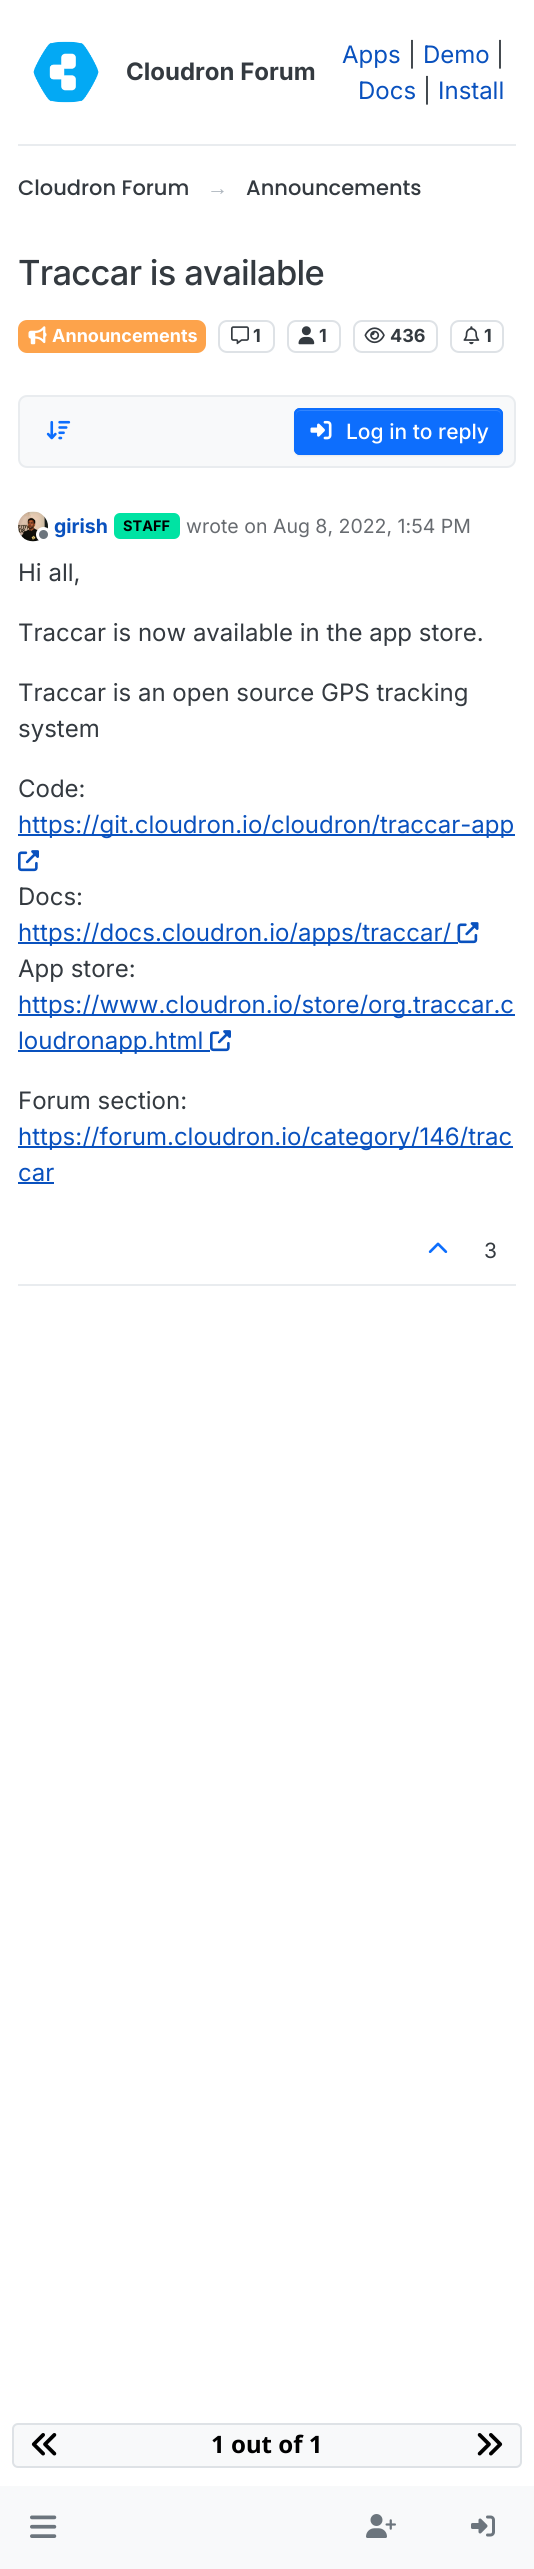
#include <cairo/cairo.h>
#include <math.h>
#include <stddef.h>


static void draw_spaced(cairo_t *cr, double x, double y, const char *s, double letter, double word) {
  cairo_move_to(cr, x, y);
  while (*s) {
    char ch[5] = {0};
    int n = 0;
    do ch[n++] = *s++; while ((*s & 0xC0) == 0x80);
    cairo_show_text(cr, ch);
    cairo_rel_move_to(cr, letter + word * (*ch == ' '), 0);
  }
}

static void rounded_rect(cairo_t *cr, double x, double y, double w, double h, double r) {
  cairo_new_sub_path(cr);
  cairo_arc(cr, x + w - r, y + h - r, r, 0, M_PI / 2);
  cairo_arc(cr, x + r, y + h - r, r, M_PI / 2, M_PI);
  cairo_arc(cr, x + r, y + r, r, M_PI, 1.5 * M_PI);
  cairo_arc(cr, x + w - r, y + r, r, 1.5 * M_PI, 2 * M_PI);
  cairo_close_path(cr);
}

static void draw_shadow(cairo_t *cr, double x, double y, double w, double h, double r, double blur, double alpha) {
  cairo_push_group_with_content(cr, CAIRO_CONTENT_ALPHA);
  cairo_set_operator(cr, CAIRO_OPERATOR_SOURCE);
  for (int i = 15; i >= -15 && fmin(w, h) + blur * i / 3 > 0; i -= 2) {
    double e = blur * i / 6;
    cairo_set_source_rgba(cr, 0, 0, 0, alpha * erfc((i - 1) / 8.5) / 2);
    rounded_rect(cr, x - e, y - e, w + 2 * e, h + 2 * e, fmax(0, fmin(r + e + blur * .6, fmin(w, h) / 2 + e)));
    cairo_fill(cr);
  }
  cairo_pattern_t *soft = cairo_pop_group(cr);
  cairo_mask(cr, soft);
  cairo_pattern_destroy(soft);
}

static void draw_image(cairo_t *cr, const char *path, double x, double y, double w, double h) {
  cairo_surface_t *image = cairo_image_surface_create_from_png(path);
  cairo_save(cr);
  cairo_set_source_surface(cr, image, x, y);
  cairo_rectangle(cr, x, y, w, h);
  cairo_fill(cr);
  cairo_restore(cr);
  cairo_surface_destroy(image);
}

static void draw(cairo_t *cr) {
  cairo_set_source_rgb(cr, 1, 1, 1);
  cairo_paint(cr);
  cairo_set_source_rgb(cr, 233 / 255.0, 236 / 255.0, 239 / 255.0);
  cairo_rectangle(cr, 18, 144, 498, 2);
  cairo_fill(cr);
  draw_image(cr, "images/1.png", 33, 41, 66, 62);
  cairo_set_source_rgb(cr, 253 / 255.0, 163 / 255.0, 75 / 255.0);
  rounded_rect(cr, 19, 321, 186, 31, 8);
  cairo_fill_preserve(cr);
  cairo_stroke(cr);
  draw_image(cr, "images/2.png", 28, 326, 19, 19);
  rounded_rect(cr, 219, 321, 55, 31, 8);
  cairo_set_source_rgb(cr, 222 / 255.0, 226 / 255.0, 230 / 255.0);
  cairo_stroke(cr);
  draw_image(cr, "images/3.png", 231, 326, 18, 19);
  rounded_rect(cr, 288, 321, 52, 31, 8);
  cairo_stroke(cr);
  draw_image(cr, "images/4.png", 298, 326, 17, 19);
  rounded_rect(cr, 354, 321, 83, 31, 8);
  cairo_stroke(cr);
  draw_image(cr, "images/5.png", 364, 327, 21, 17);
  rounded_rect(cr, 451, 321, 52, 31, 8);
  cairo_stroke(cr);
  draw_image(cr, "images/6.png", 463, 326, 17, 19);
  cairo_set_source_rgb(cr, 248 / 255.0, 249 / 255.0, 250 / 255.0);
  rounded_rect(cr, 19, 396, 496, 71, 8);
  cairo_fill_preserve(cr);
  cairo_set_source_rgb(cr, 233 / 255.0, 236 / 255.0, 239 / 255.0);
  cairo_stroke(cr);
  draw_image(cr, "images/7.png", 46, 420, 25, 20);
  cairo_set_source_rgb(cr, 0, 0, 0);
  draw_shadow(cr, 294, 410, 209, 46, 6, 1, 0.07);
  cairo_set_source_rgb(cr, 13 / 255.0, 110 / 255.0, 253 / 255.0);
  rounded_rect(cr, 294, 408, 209, 47, 6);
  cairo_fill(cr);
  cairo_set_source_rgb(cr, 49 / 255.0, 132 / 255.0, 253 / 255.0);
  cairo_new_path(cr);
  cairo_move_to(cr, 300, 411);
  cairo_line_to(cr, 496, 411);
  cairo_curve_to(cr, 499, 411, 501, 413, 501, 416);
  cairo_line_to(cr, 501, 415);
  cairo_curve_to(cr, 501, 412, 499, 410, 496, 410);
  cairo_line_to(cr, 301, 410);
  cairo_curve_to(cr, 298, 410, 296, 412, 296, 415);
  cairo_line_to(cr, 296, 416);
  cairo_curve_to(cr, 296, 413, 298, 411, 300, 411);
  cairo_close_path(cr);
  cairo_fill(cr);
  rounded_rect(cr, 295, 409, 207, 45, 5);
  cairo_set_source_rgb(cr, 13 / 255.0, 110 / 255.0, 253 / 255.0);
  cairo_stroke(cr);
  draw_image(cr, "images/8.png", 310, 420, 22, 20);
  draw_image(cr, "images/9.png", 18, 511, 30, 31);
  cairo_set_source_rgb(cr, 108 / 255.0, 117 / 255.0, 125 / 255.0);
  cairo_arc(cr, 43.5, 534.5, 6, 0, 2 * M_PI);
  cairo_fill_preserve(cr);
  cairo_set_source_rgb(cr, 1, 1, 1);
  cairo_set_line_width(cr, 3);
  cairo_stroke(cr);
  cairo_set_source_rgb(cr, 0, 227 / 255.0, 163 / 255.0);
  rounded_rect(cr, 114, 513, 66, 26, 6);
  cairo_fill(cr);
  cairo_set_source_rgb(cr, 9 / 255.0, 81 / 255.0, 190 / 255.0);
  cairo_rectangle(cr, 18, 834, 497, 2);
  cairo_fill(cr);
  draw_image(cr, "images/10.png", 18, 850, 21, 22);
  cairo_rectangle(cr, 18, 942, 440, 2);
  cairo_fill(cr);
  draw_image(cr, "images/11.png", 457, 922, 22, 22);
  cairo_rectangle(cr, 18, 1014, 497, 2);
  cairo_fill(cr);
  cairo_rectangle(cr, 18, 1050, 192, 2);
  cairo_fill(cr);
  draw_image(cr, "images/10.png", 210, 1030, 21, 22);
  cairo_rectangle(cr, 18, 1146, 495, 2);
  cairo_fill(cr);
  cairo_rectangle(cr, 18, 1182, 36, 2);
  cairo_fill(cr);
  cairo_set_source_rgb(cr, 233 / 255.0, 236 / 255.0, 239 / 255.0);
  cairo_rectangle(cr, 18, 1284, 498, 2);
  cairo_fill(cr);
  draw_image(cr, "images/12.png", 428, 1242, 20, 11);
  cairo_set_source_rgb(cr, 248 / 255.0, 249 / 255.0, 250 / 255.0);
  rounded_rect(cr, 13, 2424, 508, 43, 5);
  cairo_fill_preserve(cr);
  cairo_set_source_rgb(cr, 222 / 255.0, 226 / 255.0, 230 / 255.0);
  cairo_set_line_width(cr, 2);
  cairo_stroke(cr);
  draw_image(cr, "images/13.png", 31, 2433, 26, 23);
  draw_image(cr, "images/14.png", 477, 2433, 26, 23);
  cairo_set_source_rgb(cr, 248 / 255.0, 249 / 255.0, 250 / 255.0);
  cairo_rectangle(cr, 0, 2486, 534, 83);
  cairo_fill(cr);
  draw_image(cr, "images/15.png", 30, 2515, 27, 23);
  draw_image(cr, "images/16.png", 366, 2514, 30, 24);
  draw_image(cr, "images/17.png", 471, 2515, 24, 22);
  cairo_select_font_face(cr, "Inter", CAIRO_FONT_SLANT_NORMAL, CAIRO_FONT_WEIGHT_BOLD);
  cairo_set_font_size(cr, 24);
  cairo_set_source_rgb(cr, 52 / 255.0, 58 / 255.0, 64 / 255.0);
  cairo_move_to(cr, 126, 80);
  cairo_show_text(cr, "Cloudron Forum");
  cairo_select_font_face(cr, "Inter", CAIRO_FONT_SLANT_NORMAL, CAIRO_FONT_WEIGHT_NORMAL);
  cairo_set_source_rgb(cr, 9 / 255.0, 81 / 255.0, 190 / 255.0);
  cairo_move_to(cr, 342, 63);
  cairo_show_text(cr, "Apps");
  cairo_set_source_rgb(cr, 52 / 255.0, 58 / 255.0, 64 / 255.0);
  cairo_move_to(cr, 408, 63);
  cairo_show_text(cr, "|");
  cairo_set_source_rgb(cr, 9 / 255.0, 81 / 255.0, 190 / 255.0);
  cairo_move_to(cr, 423, 63);
  cairo_show_text(cr, "Demo");
  cairo_set_source_rgb(cr, 52 / 255.0, 58 / 255.0, 64 / 255.0);
  cairo_move_to(cr, 496, 63);
  cairo_show_text(cr, "|");
  cairo_set_source_rgb(cr, 9 / 255.0, 81 / 255.0, 190 / 255.0);
  cairo_move_to(cr, 358, 99);
  cairo_show_text(cr, "Docs");
  cairo_set_source_rgb(cr, 52 / 255.0, 58 / 255.0, 64 / 255.0);
  cairo_move_to(cr, 423, 99);
  cairo_show_text(cr, "|");
  cairo_set_source_rgb(cr, 9 / 255.0, 81 / 255.0, 190 / 255.0);
  cairo_move_to(cr, 438, 99);
  cairo_show_text(cr, "Install");
  cairo_select_font_face(cr, "Poppins Medium", CAIRO_FONT_SLANT_NORMAL, CAIRO_FONT_WEIGHT_NORMAL);
  cairo_set_font_size(cr, 21);
  cairo_set_source_rgb(cr, 52 / 255.0, 58 / 255.0, 64 / 255.0);
  cairo_move_to(cr, 18, 195);
  cairo_show_text(cr, "Cloudron Forum");
  cairo_select_font_face(cr, "Liberation Sans", CAIRO_FONT_SLANT_NORMAL, CAIRO_FONT_WEIGHT_NORMAL);
  cairo_set_source_rgb(cr, 173 / 255.0, 181 / 255.0, 189 / 255.0);
  cairo_move_to(cr, 207, 195);
  cairo_show_text(cr, "→");
  cairo_select_font_face(cr, "Poppins Medium", CAIRO_FONT_SLANT_NORMAL, CAIRO_FONT_WEIGHT_NORMAL);
  cairo_set_source_rgb(cr, 52 / 255.0, 58 / 255.0, 64 / 255.0);
  cairo_move_to(cr, 246, 195);
  cairo_show_text(cr, "Announcements");
  cairo_select_font_face(cr, "Inter Medium", CAIRO_FONT_SLANT_NORMAL, CAIRO_FONT_WEIGHT_NORMAL);
  cairo_set_font_size(cr, 34.5);
  draw_spaced(cr, 18, 285, "Traccar is available", -0.7, 0);
  cairo_select_font_face(cr, "Inter", CAIRO_FONT_SLANT_NORMAL, CAIRO_FONT_WEIGHT_BOLD);
  cairo_set_font_size(cr, 18);
  cairo_set_source_rgb(cr, 1, 1, 1);
  cairo_move_to(cr, 52, 342);
  cairo_show_text(cr, "Announcements");
  cairo_set_source_rgb(cr, 52 / 255.0, 58 / 255.0, 64 / 255.0);
  cairo_move_to(cr, 253, 342);
  cairo_show_text(cr, "1");
  cairo_move_to(cr, 319, 342);
  cairo_show_text(cr, "1");
  cairo_move_to(cr, 390, 342);
  cairo_show_text(cr, "436");
  cairo_move_to(cr, 484, 342);
  cairo_show_text(cr, "1");
  cairo_select_font_face(cr, "Inter Medium", CAIRO_FONT_SLANT_NORMAL, CAIRO_FONT_WEIGHT_NORMAL);
  cairo_set_font_size(cr, 21);
  cairo_set_source_rgb(cr, 1, 1, 1);
  cairo_move_to(cr, 346, 439);
  cairo_show_text(cr, "Log in to reply");
  cairo_select_font_face(cr, "Inter", CAIRO_FONT_SLANT_NORMAL, CAIRO_FONT_WEIGHT_BOLD);
  cairo_set_font_size(cr, 19.5);
  cairo_set_source_rgb(cr, 9 / 255.0, 81 / 255.0, 190 / 255.0);
  cairo_move_to(cr, 54, 533);
  cairo_show_text(cr, "girish");
  cairo_set_font_size(cr, 14.5);
  cairo_set_source_rgb(cr, 0, 0, 0);
  cairo_move_to(cr, 123, 531);
  cairo_show_text(cr, "STAFF");
  cairo_select_font_face(cr, "Inter", CAIRO_FONT_SLANT_NORMAL, CAIRO_FONT_WEIGHT_NORMAL);
  cairo_set_font_size(cr, 19.5);
  cairo_set_source_rgb(cr, 103 / 255.0, 107 / 255.0, 112 / 255.0);
  cairo_move_to(cr, 186, 533);
  cairo_show_text(cr, "wrote on Aug 8, 2022, 1:54 PM");
  cairo_set_font_size(cr, 24);
  cairo_set_source_rgb(cr, 52 / 255.0, 58 / 255.0, 64 / 255.0);
  cairo_move_to(cr, 18, 581);
  cairo_show_text(cr, "Hi all,");
  cairo_move_to(cr, 18, 641);
  cairo_show_text(cr, "Traccar is now available in the app store.");
  cairo_move_to(cr, 18, 701);
  cairo_show_text(cr, "Traccar is an open source GPS tracking");
  cairo_move_to(cr, 18, 737);
  cairo_show_text(cr, "system");
  cairo_move_to(cr, 18, 797);
  cairo_show_text(cr, "Code:");
  cairo_set_source_rgb(cr, 9 / 255.0, 81 / 255.0, 190 / 255.0);
  cairo_move_to(cr, 18, 833);
  cairo_show_text(cr, "https://git.cloudron.io/cloudron/traccar-app");
  cairo_set_source_rgb(cr, 52 / 255.0, 58 / 255.0, 64 / 255.0);
  cairo_move_to(cr, 18, 905);
  cairo_show_text(cr, "Docs:");
  cairo_set_source_rgb(cr, 9 / 255.0, 81 / 255.0, 190 / 255.0);
  cairo_move_to(cr, 18, 941);
  cairo_show_text(cr, "https://docs.cloudron.io/apps/traccar/");
  cairo_set_source_rgb(cr, 52 / 255.0, 58 / 255.0, 64 / 255.0);
  cairo_move_to(cr, 18, 977);
  cairo_show_text(cr, "App store:");
  cairo_set_source_rgb(cr, 9 / 255.0, 81 / 255.0, 190 / 255.0);
  cairo_move_to(cr, 18, 1013);
  cairo_show_text(cr, "https://www.cloudron.io/store/org.traccar.c");
  cairo_move_to(cr, 18, 1049);
  cairo_show_text(cr, "loudronapp.html");
  cairo_set_source_rgb(cr, 52 / 255.0, 58 / 255.0, 64 / 255.0);
  cairo_move_to(cr, 18, 1109);
  cairo_show_text(cr, "Forum section:");
  cairo_set_source_rgb(cr, 9 / 255.0, 81 / 255.0, 190 / 255.0);
  cairo_move_to(cr, 18, 1145);
  cairo_show_text(cr, "https://forum.cloudron.io/category/146/trac");
  cairo_move_to(cr, 18, 1181);
  cairo_show_text(cr, "car");
  cairo_set_font_size(cr, 21);
  cairo_set_source_rgb(cr, 52 / 255.0, 58 / 255.0, 64 / 255.0);
  cairo_move_to(cr, 484, 1258);
  cairo_show_text(cr, "3");
  cairo_select_font_face(cr, "Noto Sans", CAIRO_FONT_SLANT_NORMAL, CAIRO_FONT_WEIGHT_BOLD);
  cairo_set_font_size(cr, 24);
  cairo_set_source_rgb(cr, 0, 0, 0);
  cairo_move_to(cr, 211, 2453);
  cairo_show_text(cr, "1 out of 1");
}

int main(void) {
  cairo_surface_t *surface = cairo_image_surface_create(CAIRO_FORMAT_RGB24, 534, 2569);
  cairo_t *cr = cairo_create(surface);
  cairo_font_options_t *options = cairo_font_options_create();
  cairo_font_options_set_hint_metrics(options, CAIRO_HINT_METRICS_OFF);
  cairo_font_options_set_hint_style(options, CAIRO_HINT_STYLE_NONE);
  cairo_set_font_options(cr, options);
  cairo_set_miter_limit(cr, 4);
  draw(cr);
  cairo_surface_write_to_png(surface, "out.png");
  cairo_font_options_destroy(options);
  cairo_destroy(cr);
  cairo_surface_destroy(surface);
  return 0;
}
